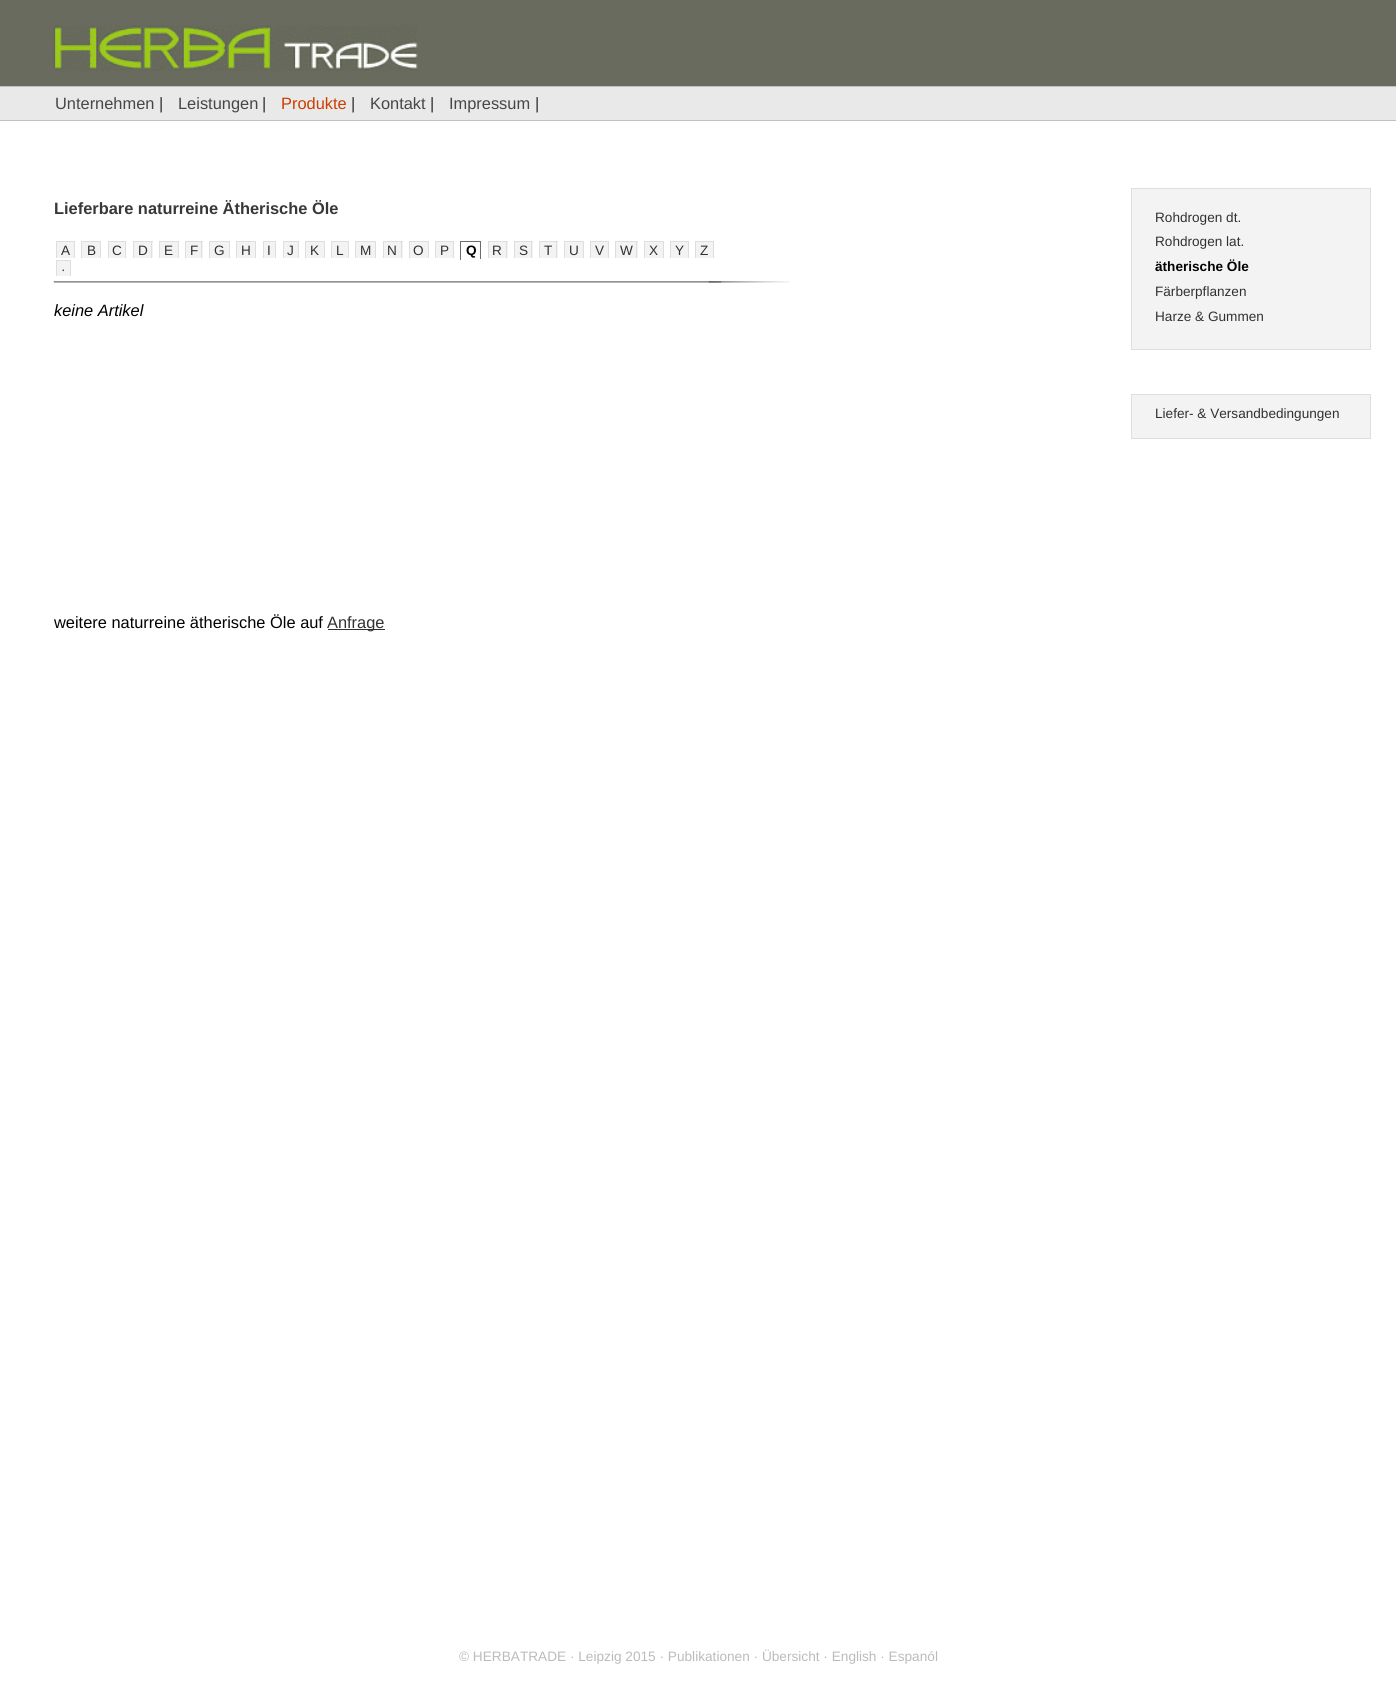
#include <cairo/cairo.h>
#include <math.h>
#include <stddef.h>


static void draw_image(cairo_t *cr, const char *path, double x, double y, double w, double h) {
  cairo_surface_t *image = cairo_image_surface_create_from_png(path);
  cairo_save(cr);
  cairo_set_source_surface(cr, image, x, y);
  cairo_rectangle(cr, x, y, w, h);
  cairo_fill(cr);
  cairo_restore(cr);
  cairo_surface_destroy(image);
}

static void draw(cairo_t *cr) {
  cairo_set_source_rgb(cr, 1, 1, 1);
  cairo_paint(cr);
  cairo_set_source_rgb(cr, 104 / 255.0, 107 / 255.0, 93 / 255.0);
  cairo_rectangle(cr, 0, 0, 1396, 86);
  cairo_fill(cr);
  draw_image(cr, "images/1.png", 53, 25, 365, 46);
  cairo_set_source_rgb(cr, 233 / 255.0, 233 / 255.0, 233 / 255.0);
  cairo_rectangle(cr, 0, 87, 1396, 33);
  cairo_fill(cr);
  cairo_set_source_rgb(cr, 192 / 255.0, 192 / 255.0, 192 / 255.0);
  cairo_rectangle(cr, 0, 86, 1396, 1);
  cairo_fill(cr);
  cairo_rectangle(cr, 0, 120, 1396, 1);
  cairo_fill(cr);
  draw_image(cr, "images/2.png", 53, 281, 669, 2);
  cairo_set_source_rgb(cr, 243 / 255.0, 243 / 255.0, 243 / 255.0);
  cairo_rectangle(cr, 57, 242, 17, 16);
  cairo_fill(cr);
  cairo_set_source_rgb(cr, 222 / 255.0, 222 / 255.0, 222 / 255.0);
  cairo_rectangle(cr, 56, 241, 19, 1);
  cairo_fill(cr);
  cairo_rectangle(cr, 74, 241, 1, 17);
  cairo_fill(cr);
  cairo_rectangle(cr, 56, 241, 1, 17);
  cairo_fill(cr);
  cairo_set_source_rgb(cr, 243 / 255.0, 243 / 255.0, 243 / 255.0);
  cairo_rectangle(cr, 82, 242, 18, 16);
  cairo_fill(cr);
  cairo_set_source_rgb(cr, 222 / 255.0, 222 / 255.0, 222 / 255.0);
  cairo_rectangle(cr, 81, 241, 20, 1);
  cairo_fill(cr);
  cairo_rectangle(cr, 100, 241, 1, 17);
  cairo_fill(cr);
  cairo_rectangle(cr, 81, 241, 1, 17);
  cairo_fill(cr);
  cairo_set_source_rgb(cr, 243 / 255.0, 243 / 255.0, 243 / 255.0);
  cairo_rectangle(cr, 109, 242, 16, 16);
  cairo_fill(cr);
  cairo_set_source_rgb(cr, 222 / 255.0, 222 / 255.0, 222 / 255.0);
  cairo_rectangle(cr, 108, 241, 18, 1);
  cairo_fill(cr);
  cairo_rectangle(cr, 125, 241, 1, 17);
  cairo_fill(cr);
  cairo_rectangle(cr, 108, 241, 1, 17);
  cairo_fill(cr);
  cairo_set_source_rgb(cr, 243 / 255.0, 243 / 255.0, 243 / 255.0);
  cairo_rectangle(cr, 134, 242, 19, 16);
  cairo_fill(cr);
  cairo_set_source_rgb(cr, 222 / 255.0, 222 / 255.0, 222 / 255.0);
  cairo_rectangle(cr, 133, 241, 20, 1);
  cairo_fill(cr);
  cairo_rectangle(cr, 151, 241, 1, 17);
  cairo_fill(cr);
  cairo_rectangle(cr, 133, 241, 1, 17);
  cairo_fill(cr);
  cairo_set_source_rgb(cr, 243 / 255.0, 243 / 255.0, 243 / 255.0);
  cairo_rectangle(cr, 160, 242, 18, 16);
  cairo_fill(cr);
  cairo_set_source_rgb(cr, 222 / 255.0, 222 / 255.0, 222 / 255.0);
  cairo_rectangle(cr, 159, 241, 20, 1);
  cairo_fill(cr);
  cairo_rectangle(cr, 178, 241, 1, 17);
  cairo_fill(cr);
  cairo_rectangle(cr, 159, 241, 1, 17);
  cairo_fill(cr);
  cairo_set_source_rgb(cr, 243 / 255.0, 243 / 255.0, 243 / 255.0);
  cairo_rectangle(cr, 186, 242, 17, 16);
  cairo_fill(cr);
  cairo_set_source_rgb(cr, 222 / 255.0, 222 / 255.0, 222 / 255.0);
  cairo_rectangle(cr, 185, 241, 18, 1);
  cairo_fill(cr);
  cairo_rectangle(cr, 201, 241, 1, 17);
  cairo_fill(cr);
  cairo_rectangle(cr, 185, 241, 1, 17);
  cairo_fill(cr);
  cairo_set_source_rgb(cr, 243 / 255.0, 243 / 255.0, 243 / 255.0);
  cairo_rectangle(cr, 210, 242, 19, 16);
  cairo_fill(cr);
  cairo_set_source_rgb(cr, 222 / 255.0, 222 / 255.0, 222 / 255.0);
  cairo_rectangle(cr, 209, 241, 21, 1);
  cairo_fill(cr);
  cairo_rectangle(cr, 229, 241, 1, 17);
  cairo_fill(cr);
  cairo_rectangle(cr, 209, 241, 1, 17);
  cairo_fill(cr);
  cairo_set_source_rgb(cr, 243 / 255.0, 243 / 255.0, 243 / 255.0);
  cairo_rectangle(cr, 237, 242, 18, 16);
  cairo_fill(cr);
  cairo_set_source_rgb(cr, 222 / 255.0, 222 / 255.0, 222 / 255.0);
  cairo_rectangle(cr, 236, 241, 20, 1);
  cairo_fill(cr);
  cairo_rectangle(cr, 255, 241, 1, 17);
  cairo_fill(cr);
  cairo_rectangle(cr, 236, 241, 1, 17);
  cairo_fill(cr);
  cairo_set_source_rgb(cr, 243 / 255.0, 243 / 255.0, 243 / 255.0);
  cairo_rectangle(cr, 264, 242, 11, 16);
  cairo_fill(cr);
  cairo_set_source_rgb(cr, 222 / 255.0, 222 / 255.0, 222 / 255.0);
  cairo_rectangle(cr, 263, 241, 13, 1);
  cairo_fill(cr);
  cairo_rectangle(cr, 275, 241, 1, 17);
  cairo_fill(cr);
  cairo_rectangle(cr, 263, 241, 1, 17);
  cairo_fill(cr);
  cairo_set_source_rgb(cr, 243 / 255.0, 243 / 255.0, 243 / 255.0);
  cairo_rectangle(cr, 284, 242, 14, 16);
  cairo_fill(cr);
  cairo_set_source_rgb(cr, 222 / 255.0, 222 / 255.0, 222 / 255.0);
  cairo_rectangle(cr, 283, 241, 16, 1);
  cairo_fill(cr);
  cairo_rectangle(cr, 298, 241, 1, 17);
  cairo_fill(cr);
  cairo_rectangle(cr, 283, 241, 1, 17);
  cairo_fill(cr);
  cairo_set_source_rgb(cr, 243 / 255.0, 243 / 255.0, 243 / 255.0);
  cairo_rectangle(cr, 306, 242, 18, 16);
  cairo_fill(cr);
  cairo_set_source_rgb(cr, 222 / 255.0, 222 / 255.0, 222 / 255.0);
  cairo_rectangle(cr, 305, 241, 20, 1);
  cairo_fill(cr);
  cairo_rectangle(cr, 324, 241, 1, 17);
  cairo_fill(cr);
  cairo_rectangle(cr, 305, 241, 1, 17);
  cairo_fill(cr);
  cairo_set_source_rgb(cr, 243 / 255.0, 243 / 255.0, 243 / 255.0);
  cairo_rectangle(cr, 332, 242, 16, 16);
  cairo_fill(cr);
  cairo_set_source_rgb(cr, 222 / 255.0, 222 / 255.0, 222 / 255.0);
  cairo_rectangle(cr, 331, 241, 18, 1);
  cairo_fill(cr);
  cairo_rectangle(cr, 348, 241, 1, 17);
  cairo_fill(cr);
  cairo_rectangle(cr, 331, 241, 1, 17);
  cairo_fill(cr);
  cairo_set_source_rgb(cr, 243 / 255.0, 243 / 255.0, 243 / 255.0);
  cairo_rectangle(cr, 356, 242, 19, 16);
  cairo_fill(cr);
  cairo_set_source_rgb(cr, 222 / 255.0, 222 / 255.0, 222 / 255.0);
  cairo_rectangle(cr, 355, 241, 21, 1);
  cairo_fill(cr);
  cairo_rectangle(cr, 375, 241, 1, 17);
  cairo_fill(cr);
  cairo_rectangle(cr, 355, 241, 1, 17);
  cairo_fill(cr);
  cairo_set_source_rgb(cr, 243 / 255.0, 243 / 255.0, 243 / 255.0);
  cairo_rectangle(cr, 384, 242, 19, 16);
  cairo_fill(cr);
  cairo_set_source_rgb(cr, 222 / 255.0, 222 / 255.0, 222 / 255.0);
  cairo_rectangle(cr, 383, 241, 20, 1);
  cairo_fill(cr);
  cairo_rectangle(cr, 401, 241, 1, 17);
  cairo_fill(cr);
  cairo_rectangle(cr, 383, 241, 1, 17);
  cairo_fill(cr);
  cairo_set_source_rgb(cr, 243 / 255.0, 243 / 255.0, 243 / 255.0);
  cairo_rectangle(cr, 410, 242, 18, 16);
  cairo_fill(cr);
  cairo_set_source_rgb(cr, 222 / 255.0, 222 / 255.0, 222 / 255.0);
  cairo_rectangle(cr, 409, 241, 20, 1);
  cairo_fill(cr);
  cairo_rectangle(cr, 428, 241, 1, 17);
  cairo_fill(cr);
  cairo_rectangle(cr, 409, 241, 1, 17);
  cairo_fill(cr);
  cairo_set_source_rgb(cr, 243 / 255.0, 243 / 255.0, 243 / 255.0);
  cairo_rectangle(cr, 436, 242, 17, 16);
  cairo_fill(cr);
  cairo_set_source_rgb(cr, 222 / 255.0, 222 / 255.0, 222 / 255.0);
  cairo_rectangle(cr, 435, 241, 19, 1);
  cairo_fill(cr);
  cairo_rectangle(cr, 453, 241, 1, 17);
  cairo_fill(cr);
  cairo_rectangle(cr, 435, 241, 1, 17);
  cairo_fill(cr);
  cairo_set_source_rgb(cr, 106 / 255.0, 106 / 255.0, 111 / 255.0);
  cairo_rectangle(cr, 460, 241, 21, 1);
  cairo_fill(cr);
  cairo_rectangle(cr, 480, 241, 1, 19);
  cairo_fill(cr);
  cairo_set_source_rgb(cr, 1, 1, 1);
  cairo_rectangle(cr, 480, 259, 1, 1);
  cairo_fill(cr);
  cairo_set_source_rgb(cr, 106 / 255.0, 106 / 255.0, 111 / 255.0);
  cairo_rectangle(cr, 460, 241, 1, 19);
  cairo_fill(cr);
  cairo_set_source_rgb(cr, 243 / 255.0, 243 / 255.0, 243 / 255.0);
  cairo_rectangle(cr, 489, 242, 19, 16);
  cairo_fill(cr);
  cairo_set_source_rgb(cr, 222 / 255.0, 222 / 255.0, 222 / 255.0);
  cairo_rectangle(cr, 488, 241, 20, 1);
  cairo_fill(cr);
  cairo_rectangle(cr, 506, 241, 1, 17);
  cairo_fill(cr);
  cairo_rectangle(cr, 488, 241, 1, 17);
  cairo_fill(cr);
  cairo_set_source_rgb(cr, 243 / 255.0, 243 / 255.0, 243 / 255.0);
  cairo_rectangle(cr, 515, 242, 18, 16);
  cairo_fill(cr);
  cairo_set_source_rgb(cr, 222 / 255.0, 222 / 255.0, 222 / 255.0);
  cairo_rectangle(cr, 514, 241, 19, 1);
  cairo_fill(cr);
  cairo_rectangle(cr, 531, 241, 1, 17);
  cairo_fill(cr);
  cairo_rectangle(cr, 514, 241, 1, 17);
  cairo_fill(cr);
  cairo_set_source_rgb(cr, 243 / 255.0, 243 / 255.0, 243 / 255.0);
  cairo_rectangle(cr, 540, 242, 18, 16);
  cairo_fill(cr);
  cairo_set_source_rgb(cr, 222 / 255.0, 222 / 255.0, 222 / 255.0);
  cairo_rectangle(cr, 539, 241, 19, 1);
  cairo_fill(cr);
  cairo_rectangle(cr, 556, 241, 1, 17);
  cairo_fill(cr);
  cairo_rectangle(cr, 539, 241, 1, 17);
  cairo_fill(cr);
  cairo_set_source_rgb(cr, 243 / 255.0, 243 / 255.0, 243 / 255.0);
  cairo_rectangle(cr, 565, 242, 18, 16);
  cairo_fill(cr);
  cairo_set_source_rgb(cr, 222 / 255.0, 222 / 255.0, 222 / 255.0);
  cairo_rectangle(cr, 564, 241, 20, 1);
  cairo_fill(cr);
  cairo_rectangle(cr, 583, 241, 1, 17);
  cairo_fill(cr);
  cairo_rectangle(cr, 564, 241, 1, 17);
  cairo_fill(cr);
  cairo_set_source_rgb(cr, 243 / 255.0, 243 / 255.0, 243 / 255.0);
  cairo_rectangle(cr, 591, 242, 17, 16);
  cairo_fill(cr);
  cairo_set_source_rgb(cr, 222 / 255.0, 222 / 255.0, 222 / 255.0);
  cairo_rectangle(cr, 590, 241, 19, 1);
  cairo_fill(cr);
  cairo_rectangle(cr, 608, 241, 1, 17);
  cairo_fill(cr);
  cairo_rectangle(cr, 590, 241, 1, 17);
  cairo_fill(cr);
  cairo_set_source_rgb(cr, 243 / 255.0, 243 / 255.0, 243 / 255.0);
  cairo_rectangle(cr, 616, 242, 22, 16);
  cairo_fill(cr);
  cairo_set_source_rgb(cr, 222 / 255.0, 222 / 255.0, 222 / 255.0);
  cairo_rectangle(cr, 615, 241, 23, 1);
  cairo_fill(cr);
  cairo_rectangle(cr, 636, 241, 1, 17);
  cairo_fill(cr);
  cairo_rectangle(cr, 615, 241, 1, 17);
  cairo_fill(cr);
  cairo_set_source_rgb(cr, 243 / 255.0, 243 / 255.0, 243 / 255.0);
  cairo_rectangle(cr, 645, 242, 18, 16);
  cairo_fill(cr);
  cairo_set_source_rgb(cr, 222 / 255.0, 222 / 255.0, 222 / 255.0);
  cairo_rectangle(cr, 644, 241, 20, 1);
  cairo_fill(cr);
  cairo_rectangle(cr, 663, 241, 1, 17);
  cairo_fill(cr);
  cairo_rectangle(cr, 644, 241, 1, 17);
  cairo_fill(cr);
  cairo_set_source_rgb(cr, 243 / 255.0, 243 / 255.0, 243 / 255.0);
  cairo_rectangle(cr, 671, 242, 17, 16);
  cairo_fill(cr);
  cairo_set_source_rgb(cr, 222 / 255.0, 222 / 255.0, 222 / 255.0);
  cairo_rectangle(cr, 670, 241, 19, 1);
  cairo_fill(cr);
  cairo_rectangle(cr, 688, 241, 1, 17);
  cairo_fill(cr);
  cairo_rectangle(cr, 670, 241, 1, 17);
  cairo_fill(cr);
  cairo_set_source_rgb(cr, 243 / 255.0, 243 / 255.0, 243 / 255.0);
  cairo_rectangle(cr, 696, 242, 17, 16);
  cairo_fill(cr);
  cairo_set_source_rgb(cr, 222 / 255.0, 222 / 255.0, 222 / 255.0);
  cairo_rectangle(cr, 695, 241, 19, 1);
  cairo_fill(cr);
  cairo_rectangle(cr, 713, 241, 1, 17);
  cairo_fill(cr);
  cairo_rectangle(cr, 695, 241, 1, 17);
  cairo_fill(cr);
  cairo_set_source_rgb(cr, 243 / 255.0, 243 / 255.0, 243 / 255.0);
  cairo_rectangle(cr, 57, 261, 13, 15);
  cairo_fill(cr);
  cairo_set_source_rgb(cr, 222 / 255.0, 222 / 255.0, 222 / 255.0);
  cairo_rectangle(cr, 56, 260, 15, 1);
  cairo_fill(cr);
  cairo_rectangle(cr, 70, 260, 1, 16);
  cairo_fill(cr);
  cairo_rectangle(cr, 56, 260, 1, 16);
  cairo_fill(cr);
  draw_image(cr, "images/3.png", 708, 281, 82, 2);
  cairo_set_source_rgb(cr, 49 / 255.0, 49 / 255.0, 49 / 255.0);
  cairo_rectangle(cr, 328, 629, 57, 1);
  cairo_fill(cr);
  cairo_set_source_rgb(cr, 243 / 255.0, 243 / 255.0, 243 / 255.0);
  cairo_rectangle(cr, 1131.5, 188.5, 239, 161);
  cairo_fill_preserve(cr);
  cairo_set_source_rgb(cr, 222 / 255.0, 222 / 255.0, 222 / 255.0);
  cairo_set_line_width(cr, 1);
  cairo_stroke(cr);
  cairo_set_source_rgb(cr, 243 / 255.0, 243 / 255.0, 243 / 255.0);
  cairo_rectangle(cr, 1131.5, 394.5, 239, 44);
  cairo_fill_preserve(cr);
  cairo_set_source_rgb(cr, 222 / 255.0, 222 / 255.0, 222 / 255.0);
  cairo_stroke(cr);
  cairo_select_font_face(cr, "Liberation Sans", CAIRO_FONT_SLANT_NORMAL, CAIRO_FONT_WEIGHT_NORMAL);
  cairo_set_font_size(cr, 16.4);
  cairo_set_source_rgb(cr, 70 / 255.0, 70 / 255.0, 70 / 255.0);
  cairo_move_to(cr, 55, 109);
  cairo_show_text(cr, "Unternehmen");
  cairo_set_source_rgb(cr, 49 / 255.0, 49 / 255.0, 49 / 255.0);
  cairo_move_to(cr, 159, 109);
  cairo_show_text(cr, "|");
  cairo_set_source_rgb(cr, 70 / 255.0, 70 / 255.0, 70 / 255.0);
  cairo_move_to(cr, 178, 109);
  cairo_show_text(cr, "Leistungen");
  cairo_set_source_rgb(cr, 49 / 255.0, 49 / 255.0, 49 / 255.0);
  cairo_move_to(cr, 262, 109);
  cairo_show_text(cr, "|");
  cairo_set_source_rgb(cr, 204 / 255.0, 61 / 255.0, 0);
  cairo_move_to(cr, 281, 109);
  cairo_show_text(cr, "Produkte");
  cairo_set_source_rgb(cr, 49 / 255.0, 49 / 255.0, 49 / 255.0);
  cairo_move_to(cr, 351, 109);
  cairo_show_text(cr, "|");
  cairo_set_source_rgb(cr, 70 / 255.0, 70 / 255.0, 70 / 255.0);
  cairo_move_to(cr, 370, 109);
  cairo_show_text(cr, "Kontakt");
  cairo_set_source_rgb(cr, 49 / 255.0, 49 / 255.0, 49 / 255.0);
  cairo_move_to(cr, 430, 109);
  cairo_show_text(cr, "|");
  cairo_set_source_rgb(cr, 70 / 255.0, 70 / 255.0, 70 / 255.0);
  cairo_move_to(cr, 449, 109);
  cairo_show_text(cr, "Impressum");
  cairo_set_source_rgb(cr, 49 / 255.0, 49 / 255.0, 49 / 255.0);
  cairo_move_to(cr, 535, 109);
  cairo_show_text(cr, "|");
  cairo_select_font_face(cr, "Liberation Sans", CAIRO_FONT_SLANT_NORMAL, CAIRO_FONT_WEIGHT_BOLD);
  cairo_set_source_rgb(cr, 56 / 255.0, 56 / 255.0, 56 / 255.0);
  cairo_move_to(cr, 54, 214);
  cairo_show_text(cr, "Lieferbare naturreine Ätherische Öle");
  cairo_select_font_face(cr, "Liberation Sans", CAIRO_FONT_SLANT_NORMAL, CAIRO_FONT_WEIGHT_NORMAL);
  cairo_set_font_size(cr, 13.6);
  cairo_set_source_rgb(cr, 49 / 255.0, 49 / 255.0, 49 / 255.0);
  cairo_move_to(cr, 61, 255);
  cairo_show_text(cr, "A");
  cairo_move_to(cr, 87, 255);
  cairo_show_text(cr, "B");
  cairo_move_to(cr, 112, 255);
  cairo_show_text(cr, "C");
  cairo_move_to(cr, 138, 255);
  cairo_show_text(cr, "D");
  cairo_move_to(cr, 164, 255);
  cairo_show_text(cr, "E");
  cairo_move_to(cr, 190, 255);
  cairo_show_text(cr, "F");
  cairo_move_to(cr, 214, 255);
  cairo_show_text(cr, "G");
  cairo_move_to(cr, 241, 255);
  cairo_show_text(cr, "H");
  cairo_move_to(cr, 267, 255);
  cairo_show_text(cr, "I");
  cairo_move_to(cr, 287, 255);
  cairo_show_text(cr, "J");
  cairo_move_to(cr, 310, 255);
  cairo_show_text(cr, "K");
  cairo_move_to(cr, 336, 255);
  cairo_show_text(cr, "L");
  cairo_move_to(cr, 360, 255);
  cairo_show_text(cr, "M");
  cairo_move_to(cr, 387, 255);
  cairo_show_text(cr, "N");
  cairo_move_to(cr, 413, 255);
  cairo_show_text(cr, "O");
  cairo_move_to(cr, 440, 255);
  cairo_show_text(cr, "P");
  cairo_select_font_face(cr, "Liberation Sans", CAIRO_FONT_SLANT_NORMAL, CAIRO_FONT_WEIGHT_BOLD);
  cairo_set_source_rgb(cr, 0, 0, 0);
  cairo_move_to(cr, 466, 255);
  cairo_show_text(cr, "Q");
  cairo_select_font_face(cr, "Liberation Sans", CAIRO_FONT_SLANT_NORMAL, CAIRO_FONT_WEIGHT_NORMAL);
  cairo_set_source_rgb(cr, 49 / 255.0, 49 / 255.0, 49 / 255.0);
  cairo_move_to(cr, 492, 255);
  cairo_show_text(cr, "R");
  cairo_move_to(cr, 519, 255);
  cairo_show_text(cr, "S");
  cairo_move_to(cr, 544, 255);
  cairo_show_text(cr, "T");
  cairo_move_to(cr, 569, 255);
  cairo_show_text(cr, "U");
  cairo_move_to(cr, 595, 255);
  cairo_show_text(cr, "V");
  cairo_move_to(cr, 620, 255);
  cairo_show_text(cr, "W");
  cairo_move_to(cr, 649, 255);
  cairo_show_text(cr, "X");
  cairo_move_to(cr, 675, 255);
  cairo_show_text(cr, "Y");
  cairo_move_to(cr, 700, 255);
  cairo_show_text(cr, "Z");
  cairo_move_to(cr, 61, 274);
  cairo_show_text(cr, "·");
  cairo_select_font_face(cr, "Liberation Sans", CAIRO_FONT_SLANT_ITALIC, CAIRO_FONT_WEIGHT_NORMAL);
  cairo_set_font_size(cr, 16.4);
  cairo_set_source_rgb(cr, 0, 0, 0);
  cairo_move_to(cr, 54, 316);
  cairo_show_text(cr, "keine Artikel");
  cairo_select_font_face(cr, "Liberation Sans", CAIRO_FONT_SLANT_NORMAL, CAIRO_FONT_WEIGHT_NORMAL);
  cairo_move_to(cr, 54, 628);
  cairo_show_text(cr, "weitere naturreine ätherische Öle auf");
  cairo_set_source_rgb(cr, 49 / 255.0, 49 / 255.0, 49 / 255.0);
  cairo_move_to(cr, 327, 628);
  cairo_show_text(cr, "Anfrage");
  cairo_set_font_size(cr, 13.6);
  cairo_move_to(cr, 1155, 222);
  cairo_show_text(cr, "Rohdrogen dt.");
  cairo_move_to(cr, 1155, 246);
  cairo_show_text(cr, "Rohdrogen lat.");
  cairo_select_font_face(cr, "Liberation Sans", CAIRO_FONT_SLANT_NORMAL, CAIRO_FONT_WEIGHT_BOLD);
  cairo_set_source_rgb(cr, 0, 0, 0);
  cairo_move_to(cr, 1155, 271);
  cairo_show_text(cr, "ätherische Öle");
  cairo_select_font_face(cr, "Liberation Sans", CAIRO_FONT_SLANT_NORMAL, CAIRO_FONT_WEIGHT_NORMAL);
  cairo_set_source_rgb(cr, 49 / 255.0, 49 / 255.0, 49 / 255.0);
  cairo_move_to(cr, 1155, 296);
  cairo_show_text(cr, "Färberpflanzen");
  cairo_move_to(cr, 1155, 321);
  cairo_show_text(cr, "Harze & Gummen");
  cairo_move_to(cr, 1155, 418);
  cairo_show_text(cr, "Liefer- & Versandbedingungen");
  cairo_set_font_size(cr, 13.65);
  cairo_set_source_rgb(cr, 187 / 255.0, 187 / 255.0, 187 / 255.0);
  cairo_move_to(cr, 459, 1661);
  cairo_show_text(cr, "© HERBATRADE · Leipzig 2015 · Publikationen · Übersicht · English · Espanól");
}

int main(void) {
  cairo_surface_t *surface = cairo_image_surface_create(CAIRO_FORMAT_RGB24, 1396, 1682);
  cairo_t *cr = cairo_create(surface);
  cairo_font_options_t *options = cairo_font_options_create();
  cairo_font_options_set_hint_metrics(options, CAIRO_HINT_METRICS_OFF);
  cairo_font_options_set_hint_style(options, CAIRO_HINT_STYLE_NONE);
  cairo_set_font_options(cr, options);
  cairo_set_miter_limit(cr, 4);
  draw(cr);
  cairo_surface_write_to_png(surface, "out.png");
  cairo_font_options_destroy(options);
  cairo_destroy(cr);
  cairo_surface_destroy(surface);
  return 0;
}
